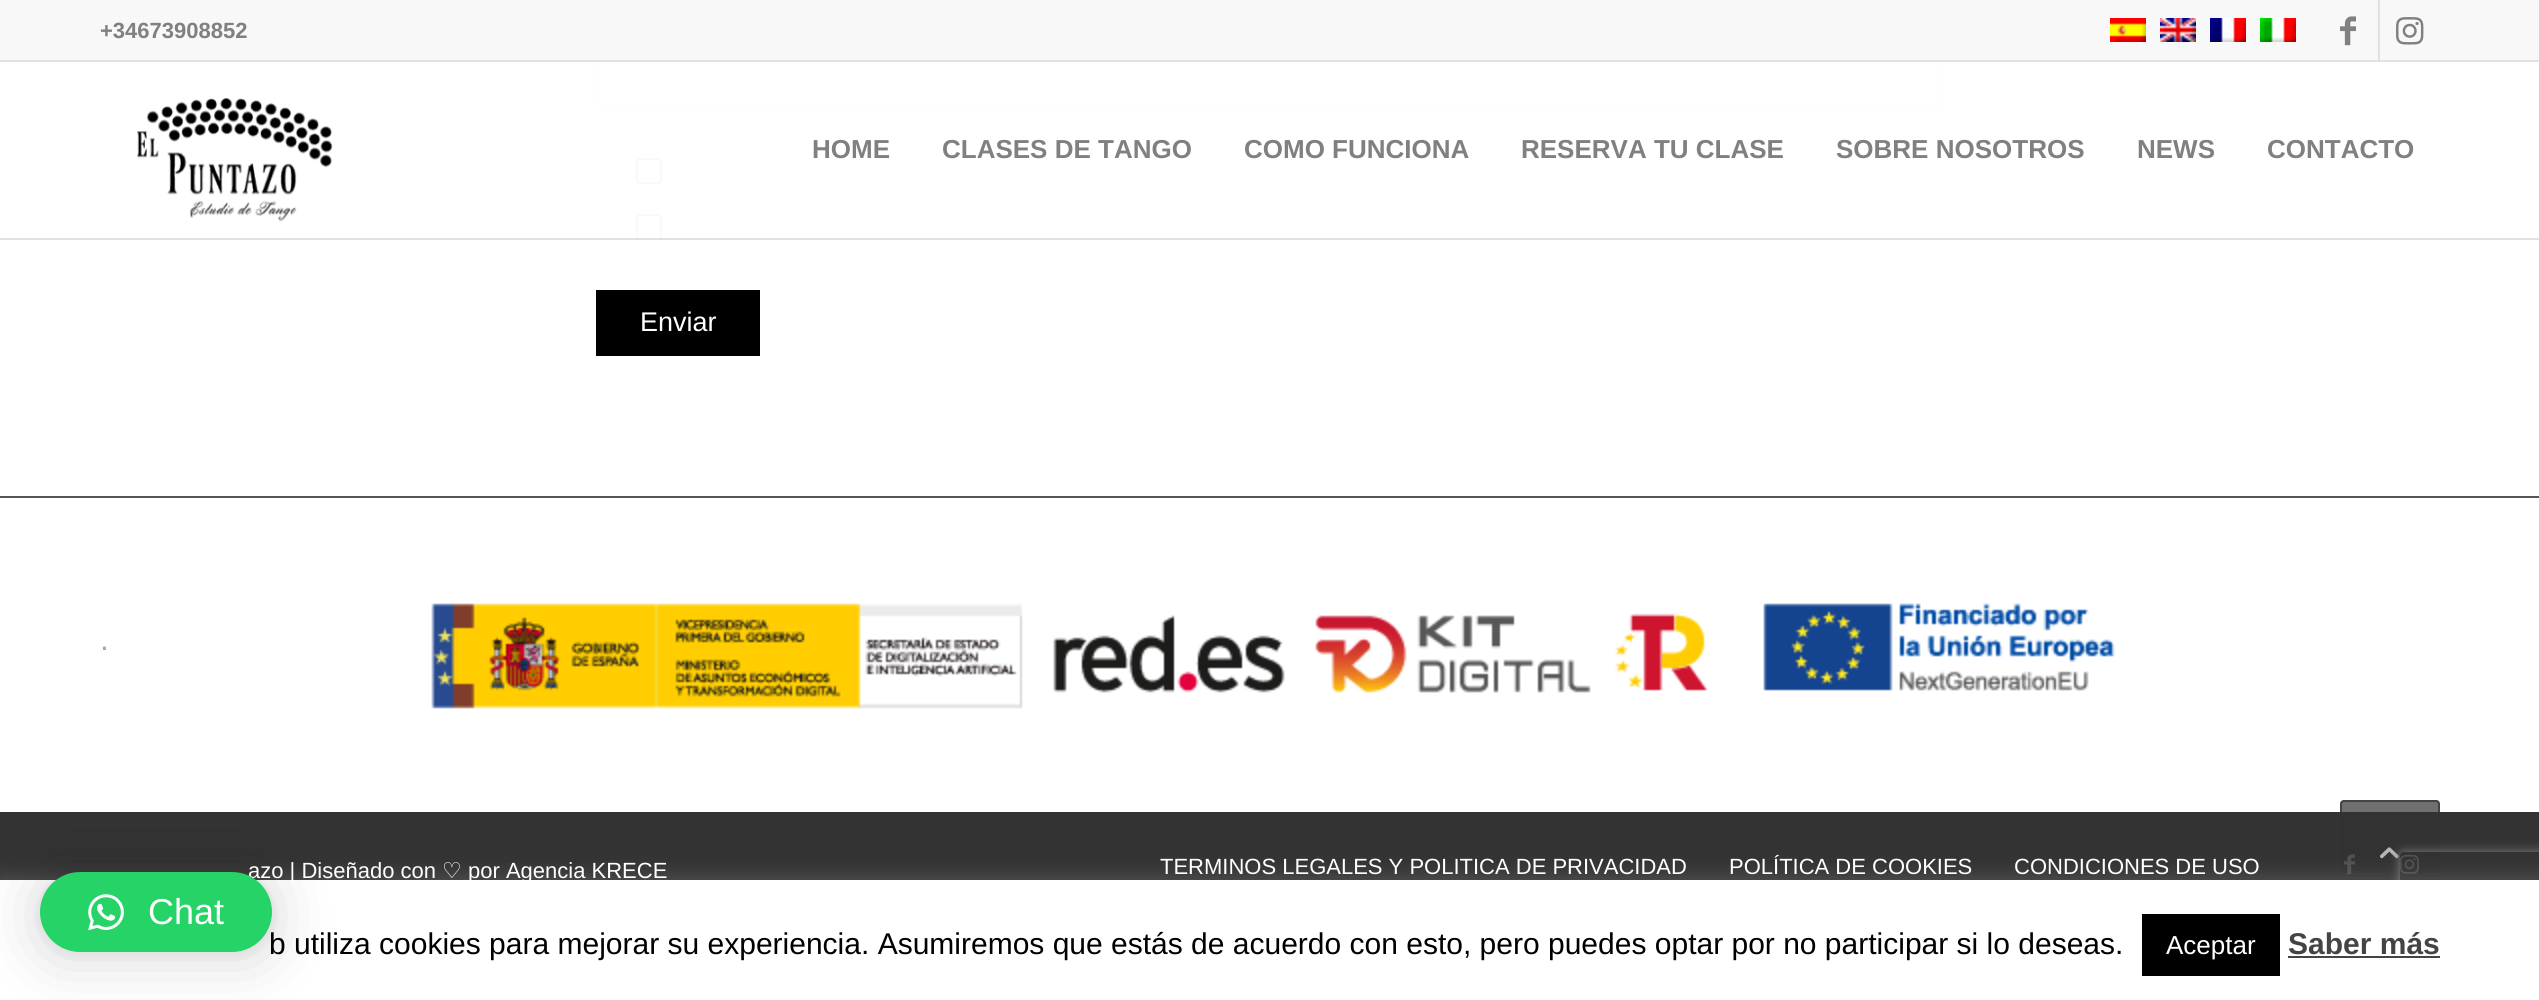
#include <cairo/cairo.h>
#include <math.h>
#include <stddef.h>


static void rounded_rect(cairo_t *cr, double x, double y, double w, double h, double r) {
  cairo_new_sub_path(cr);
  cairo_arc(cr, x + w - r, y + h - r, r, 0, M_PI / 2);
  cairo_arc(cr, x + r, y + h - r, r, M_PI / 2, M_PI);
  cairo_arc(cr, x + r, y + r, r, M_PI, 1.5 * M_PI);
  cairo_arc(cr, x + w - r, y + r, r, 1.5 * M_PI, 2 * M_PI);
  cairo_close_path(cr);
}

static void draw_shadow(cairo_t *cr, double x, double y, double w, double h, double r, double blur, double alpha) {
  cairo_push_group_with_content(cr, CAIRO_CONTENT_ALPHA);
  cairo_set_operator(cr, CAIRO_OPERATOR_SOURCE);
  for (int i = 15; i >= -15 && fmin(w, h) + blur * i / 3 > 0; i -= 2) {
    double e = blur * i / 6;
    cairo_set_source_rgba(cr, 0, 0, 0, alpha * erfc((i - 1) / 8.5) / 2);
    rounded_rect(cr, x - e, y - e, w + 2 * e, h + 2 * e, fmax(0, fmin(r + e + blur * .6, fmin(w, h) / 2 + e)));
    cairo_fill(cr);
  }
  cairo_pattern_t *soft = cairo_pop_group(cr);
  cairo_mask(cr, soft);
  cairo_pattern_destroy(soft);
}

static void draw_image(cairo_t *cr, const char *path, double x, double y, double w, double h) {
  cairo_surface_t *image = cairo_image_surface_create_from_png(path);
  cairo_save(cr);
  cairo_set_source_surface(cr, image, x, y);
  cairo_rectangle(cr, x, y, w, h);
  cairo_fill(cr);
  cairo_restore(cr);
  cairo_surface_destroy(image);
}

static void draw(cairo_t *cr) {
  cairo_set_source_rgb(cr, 1, 1, 1);
  cairo_paint(cr);
  cairo_set_source_rgb(cr, 248 / 255.0, 248 / 255.0, 248 / 255.0);
  cairo_rectangle(cr, 598, 62, 1344, 44);
  cairo_fill(cr);
  cairo_rectangle(cr, 597, 37, 1346, 70);
  cairo_set_source_rgb(cr, 225 / 255.0, 225 / 255.0, 225 / 255.0);
  cairo_stroke(cr);
  cairo_set_source_rgb(cr, 248 / 255.0, 248 / 255.0, 248 / 255.0);
  cairo_rectangle(cr, 0, 0, 2539, 60);
  cairo_fill(cr);
  cairo_set_source_rgb(cr, 225 / 255.0, 225 / 255.0, 225 / 255.0);
  cairo_rectangle(cr, 0, 60, 2539, 2);
  cairo_fill(cr);
  draw_image(cr, "images/1.png", 2110, 18, 36, 24);
  draw_image(cr, "images/2.png", 2160, 18, 36, 24);
  draw_image(cr, "images/3.png", 2210, 18, 36, 24);
  draw_image(cr, "images/4.png", 2260, 18, 36, 24);
  cairo_rectangle(cr, 2378, 0, 2, 60);
  cairo_fill(cr);
  draw_image(cr, "images/5.png", 2340, 16, 16, 30);
  draw_image(cr, "images/6.png", 2396, 17, 28, 28);
  rounded_rect(cr, 637, 159, 24, 24, 3);
  cairo_set_source_rgb(cr, 118 / 255.0, 118 / 255.0, 118 / 255.0);
  cairo_stroke(cr);
  rounded_rect(cr, 637, 215, 24, 24, 3);
  cairo_stroke(cr);
  cairo_set_source_rgba(cr, 1, 1, 1, 0.95);
  cairo_rectangle(cr, 596, 62, 1348, 176);
  cairo_fill(cr);
  cairo_set_source_rgb(cr, 225 / 255.0, 225 / 255.0, 225 / 255.0);
  cairo_rectangle(cr, 0, 238, 2539, 2);
  cairo_fill(cr);
  draw_image(cr, "images/7.png", 137, 98, 196, 124);
  cairo_set_source_rgb(cr, 0, 0, 0);
  cairo_rectangle(cr, 596, 290, 164, 66);
  cairo_fill(cr);
  draw_image(cr, "images/8.png", 431, 603, 1684, 106);
  cairo_set_source_rgb(cr, 85 / 255.0, 85 / 255.0, 85 / 255.0);
  cairo_rectangle(cr, 0, 496, 2539, 2);
  cairo_fill(cr);
  cairo_set_source_rgb(cr, 51 / 255.0, 51 / 255.0, 51 / 255.0);
  cairo_rectangle(cr, 0, 812, 2539, 68);
  cairo_fill(cr);
  draw_image(cr, "images/9.png", 2344, 854, 11, 21);
  draw_image(cr, "images/10.png", 2400, 854, 19, 20);
  cairo_set_source_rgba(cr, 51 / 255.0, 51 / 255.0, 51 / 255.0, 0.7);
  rounded_rect(cr, 2340, 800, 100, 100, 4);
  cairo_fill(cr);
  rounded_rect(cr, 2341, 801, 98, 98, 3);
  cairo_stroke(cr);
  draw_image(cr, "images/11.png", 2380, 847, 19, 12);
  cairo_save(cr);
  cairo_set_fill_rule(cr, CAIRO_FILL_RULE_EVEN_ODD);
  cairo_new_path(cr);
  cairo_move_to(cr, 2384, 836);
  cairo_line_to(cr, 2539, 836);
  cairo_line_to(cr, 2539, 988);
  cairo_line_to(cr, 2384, 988);
  cairo_close_path(cr);
  cairo_move_to(cr, 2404, 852);
  cairo_line_to(cr, 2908, 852);
  cairo_curve_to(cr, 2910, 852, 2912, 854, 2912, 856);
  cairo_line_to(cr, 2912, 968);
  cairo_curve_to(cr, 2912, 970, 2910, 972, 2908, 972);
  cairo_line_to(cr, 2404, 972);
  cairo_curve_to(cr, 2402, 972, 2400, 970, 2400, 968);
  cairo_line_to(cr, 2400, 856);
  cairo_curve_to(cr, 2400, 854, 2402, 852, 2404, 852);
  cairo_close_path(cr);
  cairo_clip(cr);
  cairo_set_source_rgb(cr, 128 / 255.0, 128 / 255.0, 128 / 255.0);
  draw_shadow(cr, 2400, 852, 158, 120, 4, 5, 1);
  cairo_restore(cr);
  cairo_set_source_rgb(cr, 172 / 255.0, 171 / 255.0, 171 / 255.0);
  draw_shadow(cr, 0, 878, 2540, 120, 0, 10, 0.3);
  cairo_set_source_rgb(cr, 1, 1, 1);
  cairo_rectangle(cr, 0, 880, 2539, 120);
  cairo_fill(cr);
  cairo_set_source_rgb(cr, 0, 0, 0);
  draw_shadow(cr, 40, 876, 232, 80, 40, 32, 0.16);
  draw_shadow(cr, 40, 874, 232, 80, 40, 6, 0.06);
  cairo_set_source_rgb(cr, 0, 0, 0);
  cairo_rectangle(cr, 2142, 914, 138, 62);
  cairo_fill(cr);
  cairo_set_source_rgb(cr, 68 / 255.0, 68 / 255.0, 68 / 255.0);
  cairo_rectangle(cr, 2288, 956, 152, 2);
  cairo_fill(cr);
  cairo_select_font_face(cr, "Liberation Sans", CAIRO_FONT_SLANT_NORMAL, CAIRO_FONT_WEIGHT_BOLD);
  cairo_set_font_size(cr, 22);
  cairo_set_source_rgb(cr, 128 / 255.0, 128 / 255.0, 128 / 255.0);
  cairo_move_to(cr, 100, 38);
  cairo_show_text(cr, "+34673908852");
  cairo_set_font_size(cr, 26);
  cairo_move_to(cr, 812, 158);
  cairo_show_text(cr, "HOME");
  cairo_move_to(cr, 942, 158);
  cairo_show_text(cr, "CLASES DE TANGO");
  cairo_move_to(cr, 1244, 158);
  cairo_show_text(cr, "COMO FUNCIONA");
  cairo_move_to(cr, 1521, 158);
  cairo_show_text(cr, "RESERVA TU CLASE");
  cairo_move_to(cr, 1836, 158);
  cairo_show_text(cr, "SOBRE NOSOTROS");
  cairo_move_to(cr, 2137, 158);
  cairo_show_text(cr, "NEWS");
  cairo_move_to(cr, 2267, 158);
  cairo_show_text(cr, "CONTACTO");
  cairo_select_font_face(cr, "Liberation Sans", CAIRO_FONT_SLANT_NORMAL, CAIRO_FONT_WEIGHT_NORMAL);
  cairo_set_font_size(cr, 27);
  cairo_set_source_rgb(cr, 1, 1, 1);
  cairo_move_to(cr, 640, 331);
  cairo_show_text(cr, "Enviar");
  cairo_set_font_size(cr, 32);
  cairo_set_source_rgb(cr, 170 / 255.0, 170 / 255.0, 170 / 255.0);
  cairo_move_to(cr, 100, 650);
  cairo_show_text(cr, ".");
  cairo_set_font_size(cr, 22);
  cairo_set_source_rgb(cr, 1, 1, 1);
  cairo_move_to(cr, 248, 878);
  cairo_show_text(cr, "azo | Diseñado con");
  cairo_select_font_face(cr, "DejaVu Sans", CAIRO_FONT_SLANT_NORMAL, CAIRO_FONT_WEIGHT_NORMAL);
  cairo_move_to(cr, 442, 878);
  cairo_show_text(cr, "♡");
  cairo_select_font_face(cr, "Liberation Sans", CAIRO_FONT_SLANT_NORMAL, CAIRO_FONT_WEIGHT_NORMAL);
  cairo_move_to(cr, 468, 878);
  cairo_show_text(cr, "por Agencia KRECE");
  cairo_move_to(cr, 1160, 874);
  cairo_show_text(cr, "TERMINOS LEGALES Y POLITICA DE PRIVACIDAD");
  cairo_move_to(cr, 1729, 874);
  cairo_show_text(cr, "POLÍTICA DE COOKIES");
  cairo_move_to(cr, 2014, 874);
  cairo_show_text(cr, "CONDICIONES DE USO");
  cairo_set_font_size(cr, 30);
  cairo_set_source_rgb(cr, 0, 0, 0);
  cairo_move_to(cr, 269, 954);
  cairo_show_text(cr, "b utiliza cookies para mejorar su experiencia. Asumiremos que estás de acuerdo con esto, pero puedes optar por no participar si lo deseas.");
  cairo_set_source_rgb(cr, 37 / 255.0, 211 / 255.0, 102 / 255.0);
  rounded_rect(cr, 40, 872, 232, 80, 40);
  cairo_fill(cr);
  cairo_set_font_size(cr, 36);
  cairo_set_source_rgb(cr, 1, 1, 1);
  cairo_move_to(cr, 148, 924);
  cairo_show_text(cr, "Chat");
  draw_image(cr, "images/12.png", 88, 894, 36, 37);
  cairo_set_font_size(cr, 26);
  cairo_move_to(cr, 2166, 954);
  cairo_show_text(cr, "Aceptar");
  cairo_select_font_face(cr, "Liberation Sans", CAIRO_FONT_SLANT_NORMAL, CAIRO_FONT_WEIGHT_BOLD);
  cairo_set_font_size(cr, 30);
  cairo_set_source_rgb(cr, 68 / 255.0, 68 / 255.0, 68 / 255.0);
  cairo_move_to(cr, 2288, 954);
  cairo_show_text(cr, "Saber más");
}

int main(void) {
  cairo_surface_t *surface = cairo_image_surface_create(CAIRO_FORMAT_RGB24, 2539, 1000);
  cairo_t *cr = cairo_create(surface);
  cairo_font_options_t *options = cairo_font_options_create();
  cairo_font_options_set_hint_metrics(options, CAIRO_HINT_METRICS_OFF);
  cairo_font_options_set_hint_style(options, CAIRO_HINT_STYLE_NONE);
  cairo_set_font_options(cr, options);
  cairo_set_miter_limit(cr, 4);
  draw(cr);
  cairo_surface_write_to_png(surface, "out.png");
  cairo_font_options_destroy(options);
  cairo_destroy(cr);
  cairo_surface_destroy(surface);
  return 0;
}
